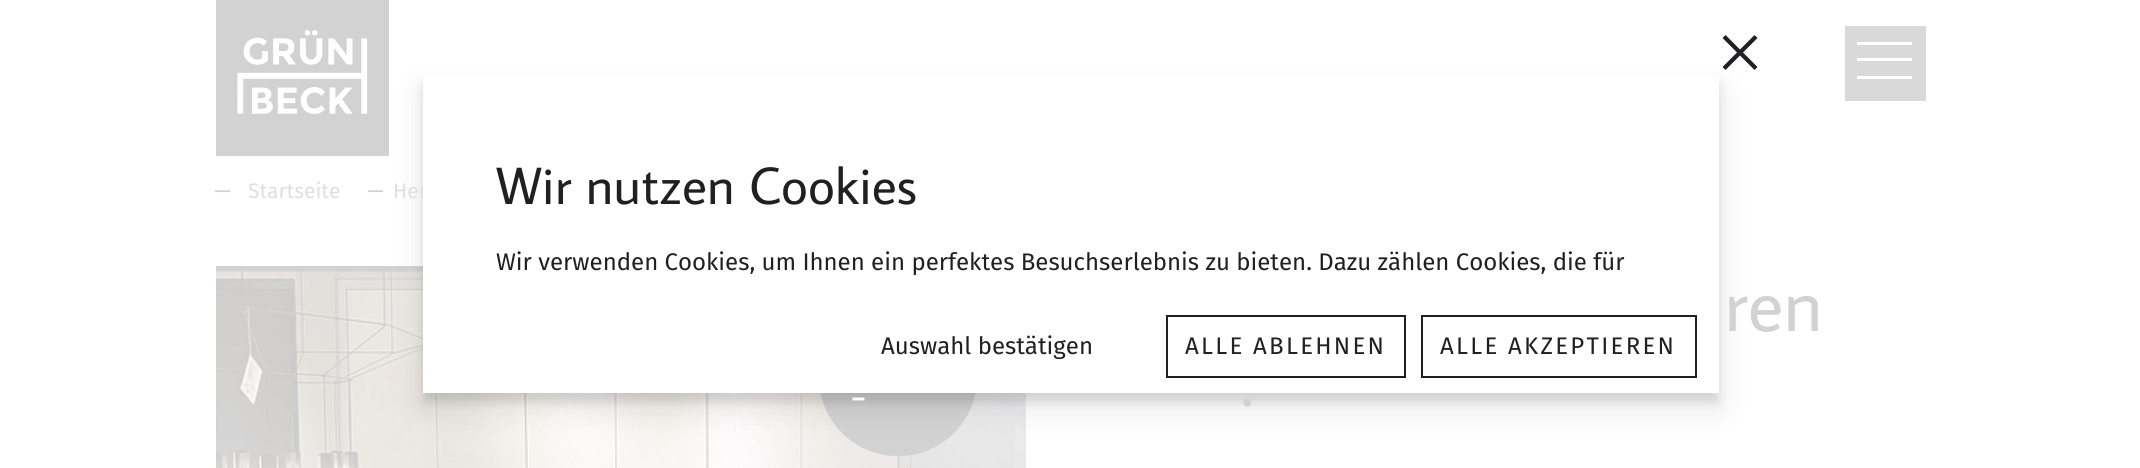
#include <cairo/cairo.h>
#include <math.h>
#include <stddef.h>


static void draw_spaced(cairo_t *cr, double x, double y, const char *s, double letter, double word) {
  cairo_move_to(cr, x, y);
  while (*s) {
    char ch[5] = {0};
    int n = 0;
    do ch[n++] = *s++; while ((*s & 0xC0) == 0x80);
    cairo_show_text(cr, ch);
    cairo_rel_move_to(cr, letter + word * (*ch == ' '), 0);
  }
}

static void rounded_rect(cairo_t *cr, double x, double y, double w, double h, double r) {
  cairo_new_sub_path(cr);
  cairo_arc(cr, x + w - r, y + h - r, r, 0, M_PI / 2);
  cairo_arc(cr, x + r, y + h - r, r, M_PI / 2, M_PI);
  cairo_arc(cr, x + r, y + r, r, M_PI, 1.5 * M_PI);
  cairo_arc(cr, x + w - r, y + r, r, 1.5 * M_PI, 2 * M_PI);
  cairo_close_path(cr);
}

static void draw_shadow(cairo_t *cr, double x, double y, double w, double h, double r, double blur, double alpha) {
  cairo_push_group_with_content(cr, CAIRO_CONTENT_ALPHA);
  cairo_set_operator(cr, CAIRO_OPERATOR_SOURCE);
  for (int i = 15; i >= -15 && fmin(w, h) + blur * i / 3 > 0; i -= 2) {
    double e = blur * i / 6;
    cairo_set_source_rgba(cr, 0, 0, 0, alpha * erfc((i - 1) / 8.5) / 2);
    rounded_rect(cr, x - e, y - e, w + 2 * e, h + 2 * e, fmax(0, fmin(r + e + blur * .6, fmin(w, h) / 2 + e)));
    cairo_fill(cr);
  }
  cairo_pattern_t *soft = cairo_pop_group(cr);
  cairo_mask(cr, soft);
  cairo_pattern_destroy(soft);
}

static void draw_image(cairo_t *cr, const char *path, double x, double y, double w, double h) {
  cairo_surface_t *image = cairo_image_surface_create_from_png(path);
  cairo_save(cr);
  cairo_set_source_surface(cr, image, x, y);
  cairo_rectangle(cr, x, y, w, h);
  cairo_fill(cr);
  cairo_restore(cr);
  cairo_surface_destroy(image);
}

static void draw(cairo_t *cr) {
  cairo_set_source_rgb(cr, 1, 1, 1);
  cairo_paint(cr);
  cairo_set_source_rgb(cr, 210 / 255.0, 210 / 255.0, 211 / 255.0);
  cairo_rectangle(cr, 216, 266, 207, 6);
  cairo_fill(cr);
  draw_image(cr, "images/2.png", 216, 271, 810, 197);
  rounded_rect(cr, 819, 299, 158, 157, 78.5);
  cairo_fill(cr);
  cairo_set_source_rgb(cr, 0, 0, 0);
  draw_shadow(cr, 423, 84, 1296, 318, 0, 4.5, 0.1);
  cairo_set_source_rgb(cr, 210 / 255.0, 210 / 255.0, 211 / 255.0);
  cairo_rectangle(cr, 216, 0, 173, 156);
  cairo_fill(cr);
  cairo_set_source_rgb(cr, 0, 0, 0);
  draw_shadow(cr, 423, 90, 1296, 318, 0, 15, 0.1);
  cairo_set_source_rgb(cr, 32 / 255.0, 31 / 255.0, 33 / 255.0);
  cairo_new_path(cr);
  cairo_move_to(cr, 1754.5, 35);
  cairo_line_to(cr, 1757.5, 38);
  cairo_line_to(cr, 1725.5, 70);
  cairo_line_to(cr, 1722.5, 67);
  cairo_close_path(cr);
  cairo_fill(cr);
  cairo_new_path(cr);
  cairo_move_to(cr, 1722.5, 38);
  cairo_line_to(cr, 1725.5, 35);
  cairo_line_to(cr, 1757.5, 67);
  cairo_line_to(cr, 1754.5, 70);
  cairo_close_path(cr);
  cairo_fill(cr);
  draw_image(cr, "images/1.png", 237, 30, 131, 84);
  cairo_set_source_rgb(cr, 217 / 255.0, 217 / 255.0, 217 / 255.0);
  cairo_rectangle(cr, 1845, 26, 81, 75);
  cairo_fill(cr);
  cairo_set_source_rgb(cr, 1, 1, 1);
  cairo_new_path(cr);
  cairo_move_to(cr, 1857, 79);
  cairo_line_to(cr, 1912, 79);
  cairo_line_to(cr, 1912, 76);
  cairo_line_to(cr, 1857, 76);
  cairo_close_path(cr);
  cairo_move_to(cr, 1857, 61);
  cairo_line_to(cr, 1912, 61);
  cairo_line_to(cr, 1912, 58);
  cairo_line_to(cr, 1857, 58);
  cairo_close_path(cr);
  cairo_move_to(cr, 1857, 42);
  cairo_line_to(cr, 1857, 45);
  cairo_line_to(cr, 1912, 45);
  cairo_line_to(cr, 1912, 42);
  cairo_close_path(cr);
  cairo_fill(cr);
  cairo_select_font_face(cr, "Liberation Sans", CAIRO_FONT_SLANT_NORMAL, CAIRO_FONT_WEIGHT_NORMAL);
  cairo_set_font_size(cr, 27);
  cairo_set_source_rgb(cr, 210 / 255.0, 210 / 255.0, 211 / 255.0);
  cairo_move_to(cr, 215, 198);
  cairo_show_text(cr, "–");
  cairo_select_font_face(cr, "Fira Sans", CAIRO_FONT_SLANT_NORMAL, CAIRO_FONT_WEIGHT_NORMAL);
  cairo_set_font_size(cr, 21);
  cairo_set_source_rgb(cr, 223 / 255.0, 223 / 255.0, 224 / 255.0);
  cairo_move_to(cr, 248, 198);
  cairo_show_text(cr, "Startseite");
  cairo_select_font_face(cr, "Liberation Sans", CAIRO_FONT_SLANT_NORMAL, CAIRO_FONT_WEIGHT_NORMAL);
  cairo_set_font_size(cr, 27);
  cairo_set_source_rgb(cr, 210 / 255.0, 210 / 255.0, 211 / 255.0);
  cairo_move_to(cr, 368, 198);
  cairo_show_text(cr, "–");
  cairo_select_font_face(cr, "Fira Sans", CAIRO_FONT_SLANT_NORMAL, CAIRO_FONT_WEIGHT_NORMAL);
  cairo_set_font_size(cr, 21);
  cairo_set_source_rgb(cr, 223 / 255.0, 223 / 255.0, 224 / 255.0);
  cairo_move_to(cr, 393, 198);
  cairo_show_text(cr, "Her");
  cairo_set_source_rgb(cr, 1, 1, 1);
  cairo_rectangle(cr, 423, 75, 1296, 318);
  cairo_fill(cr);
  cairo_rectangle(cr, 1422, 316, 274, 61);
  cairo_set_source_rgb(cr, 32 / 255.0, 31 / 255.0, 33 / 255.0);
  cairo_stroke(cr);
  cairo_set_font_size(cr, 24);
  draw_spaced(cr, 1440, 354, "ALLE AKZEPTIEREN", 2.25, 0);
  cairo_rectangle(cr, 1167, 316, 238, 61);
  cairo_stroke(cr);
  draw_spaced(cr, 1185, 354, "ALLE ABLEHNEN", 2.25, 0);
  cairo_move_to(cr, 496, 270);
  cairo_show_text(cr, "Wir verwenden Cookies, um Ihnen ein perfektes Besuchserlebnis zu bieten. Dazu zählen Cookies, die für");
  cairo_select_font_face(cr, "Average Sans", CAIRO_FONT_SLANT_NORMAL, CAIRO_FONT_WEIGHT_NORMAL);
  cairo_set_font_size(cr, 52.5);
  cairo_move_to(cr, 496, 204);
  cairo_show_text(cr, "Wir nutzen Cookies");
  cairo_select_font_face(cr, "Fira Sans", CAIRO_FONT_SLANT_NORMAL, CAIRO_FONT_WEIGHT_NORMAL);
  cairo_set_font_size(cr, 24);
  cairo_move_to(cr, 881, 354);
  cairo_show_text(cr, "Auswahl bestätigen");
  cairo_select_font_face(cr, "Average Sans", CAIRO_FONT_SLANT_NORMAL, CAIRO_FONT_WEIGHT_NORMAL);
  cairo_set_font_size(cr, 42);
  cairo_set_source_rgb(cr, 1, 1, 1);
  draw_spaced(cr, 851, 410, "-", 2, 0);
  cairo_set_font_size(cr, 75);
  cairo_set_source_rgb(cr, 210 / 255.0, 210 / 255.0, 211 / 255.0);
  cairo_move_to(cr, 1724, 331);
  cairo_show_text(cr, "ren");
  cairo_move_to(cr, 1241, 406);
  cairo_show_text(cr, ".");
}

int main(void) {
  cairo_surface_t *surface = cairo_image_surface_create(CAIRO_FORMAT_RGB24, 2140, 468);
  cairo_t *cr = cairo_create(surface);
  cairo_font_options_t *options = cairo_font_options_create();
  cairo_font_options_set_hint_metrics(options, CAIRO_HINT_METRICS_OFF);
  cairo_font_options_set_hint_style(options, CAIRO_HINT_STYLE_NONE);
  cairo_set_font_options(cr, options);
  cairo_set_miter_limit(cr, 4);
  draw(cr);
  cairo_surface_write_to_png(surface, "out.png");
  cairo_font_options_destroy(options);
  cairo_destroy(cr);
  cairo_surface_destroy(surface);
  return 0;
}
